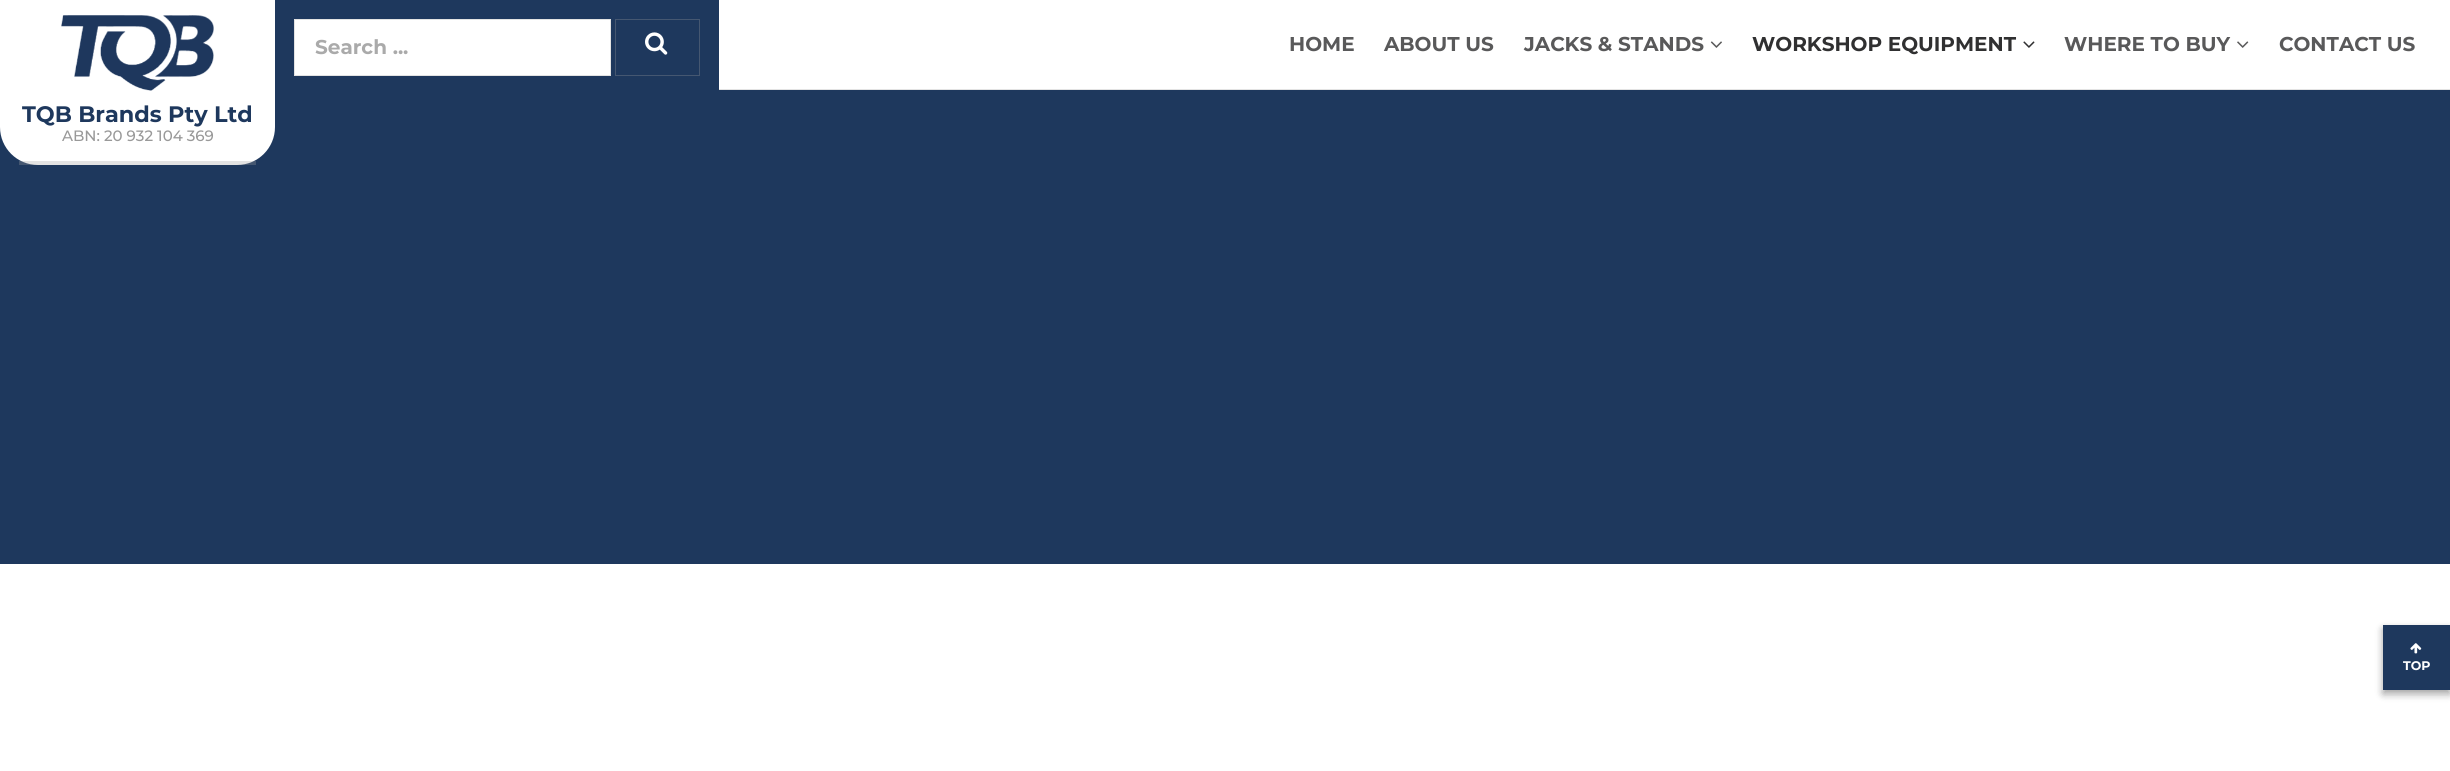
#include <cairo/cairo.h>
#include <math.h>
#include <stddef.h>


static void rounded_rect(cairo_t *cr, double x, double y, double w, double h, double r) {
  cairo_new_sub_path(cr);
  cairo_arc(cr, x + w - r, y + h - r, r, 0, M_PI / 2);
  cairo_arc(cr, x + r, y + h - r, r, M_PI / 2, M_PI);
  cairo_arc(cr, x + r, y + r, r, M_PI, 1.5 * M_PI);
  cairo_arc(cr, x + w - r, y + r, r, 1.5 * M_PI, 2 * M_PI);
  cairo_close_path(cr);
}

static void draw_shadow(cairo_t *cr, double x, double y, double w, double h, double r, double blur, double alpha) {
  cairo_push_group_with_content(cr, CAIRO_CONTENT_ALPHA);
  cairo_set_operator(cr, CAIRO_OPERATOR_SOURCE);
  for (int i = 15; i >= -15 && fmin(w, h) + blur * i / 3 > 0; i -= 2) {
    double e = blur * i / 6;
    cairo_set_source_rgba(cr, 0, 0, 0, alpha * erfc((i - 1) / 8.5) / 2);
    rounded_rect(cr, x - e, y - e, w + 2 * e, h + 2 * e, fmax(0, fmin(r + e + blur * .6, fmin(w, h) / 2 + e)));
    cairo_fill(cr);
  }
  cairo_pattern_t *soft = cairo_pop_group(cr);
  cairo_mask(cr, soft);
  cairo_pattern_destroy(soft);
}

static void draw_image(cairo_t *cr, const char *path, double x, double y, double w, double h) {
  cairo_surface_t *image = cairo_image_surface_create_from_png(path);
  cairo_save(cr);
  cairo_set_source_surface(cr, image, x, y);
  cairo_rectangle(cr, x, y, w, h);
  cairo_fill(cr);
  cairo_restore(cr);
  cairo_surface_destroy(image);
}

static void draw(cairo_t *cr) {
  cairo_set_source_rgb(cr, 30 / 255.0, 56 / 255.0, 93 / 255.0);
  cairo_paint(cr);
  cairo_set_source_rgb(cr, 1, 1, 1);
  cairo_rectangle(cr, 719, 0, 1731, 89);
  cairo_fill(cr);
  cairo_set_source_rgb(cr, 227 / 255.0, 227 / 255.0, 227 / 255.0);
  cairo_rectangle(cr, 719, 89, 1731, 1);
  cairo_fill(cr);
  cairo_set_source_rgb(cr, 1, 1, 1);
  cairo_rectangle(cr, 294.5, 19.5, 316, 56);
  cairo_fill_preserve(cr);
  cairo_set_source_rgb(cr, 227 / 255.0, 227 / 255.0, 227 / 255.0);
  cairo_set_line_width(cr, 1);
  cairo_stroke(cr);
  cairo_rectangle(cr, 615.5, 19.5, 84, 56);
  cairo_set_source_rgb(cr, 69 / 255.0, 87 / 255.0, 113 / 255.0);
  cairo_stroke(cr);
  draw_image(cr, "images/1.png", 645, 32, 23, 23);
  draw_image(cr, "images/2.png", 1710, 41, 12, 7);
  draw_image(cr, "images/3.png", 2023, 41, 12, 7);
  draw_image(cr, "images/4.png", 2237, 41, 12, 7);
  cairo_set_source_rgb(cr, 1, 1, 1);
  cairo_new_path(cr);
  cairo_move_to(cr, 0, 0);
  cairo_line_to(cr, 275, 0);
  cairo_line_to(cr, 275, 127);
  cairo_curve_to(cr, 275, 148, 258, 165, 237, 165);
  cairo_line_to(cr, 38, 165);
  cairo_curve_to(cr, 17, 165, 0, 148, 0, 127);
  cairo_close_path(cr);
  cairo_fill(cr);
  cairo_set_source_rgba(cr, 160 / 255.0, 160 / 255.0, 160 / 255.0, 0.3);
  cairo_rectangle(cr, 19, 161, 237, 4);
  cairo_fill(cr);
  draw_image(cr, "images/5.png", 61, 15, 153, 76);
  cairo_set_source_rgb(cr, 1, 1, 1);
  cairo_rectangle(cr, 0, 564, 2450, 207);
  cairo_fill(cr);
  cairo_set_source_rgb(cr, 0, 0, 0);
  draw_shadow(cr, 2383, 629, 67, 65, 0, 4, 0.23);
  draw_shadow(cr, 2383, 629, 67, 65, 0, 4, 0.16);
  cairo_set_source_rgb(cr, 30 / 255.0, 56 / 255.0, 93 / 255.0);
  cairo_rectangle(cr, 2383, 625, 67, 65);
  cairo_fill(cr);
  draw_image(cr, "images/6.png", 2410, 643, 12, 11);
  cairo_select_font_face(cr, "Montserrat", CAIRO_FONT_SLANT_NORMAL, CAIRO_FONT_WEIGHT_BOLD);
  cairo_set_font_size(cr, 20);
  cairo_set_source_rgb(cr, 170 / 255.0, 170 / 255.0, 170 / 255.0);
  cairo_move_to(cr, 315, 54);
  cairo_show_text(cr, "Search ...");
  cairo_set_source_rgb(cr, 89 / 255.0, 89 / 255.0, 90 / 255.0);
  cairo_move_to(cr, 1289, 51);
  cairo_show_text(cr, "HOME");
  cairo_move_to(cr, 1384, 51);
  cairo_show_text(cr, "ABOUT US");
  cairo_move_to(cr, 1524, 51);
  cairo_show_text(cr, "JACKS & STANDS");
  cairo_set_source_rgb(cr, 48 / 255.0, 48 / 255.0, 49 / 255.0);
  cairo_move_to(cr, 1752, 51);
  cairo_show_text(cr, "WORKSHOP EQUIPMENT");
  cairo_set_source_rgb(cr, 89 / 255.0, 89 / 255.0, 90 / 255.0);
  cairo_move_to(cr, 2064, 51);
  cairo_show_text(cr, "WHERE TO BUY");
  cairo_move_to(cr, 2279, 51);
  cairo_show_text(cr, "CONTACT US");
  cairo_set_font_size(cr, 22.4);
  cairo_set_source_rgb(cr, 30 / 255.0, 56 / 255.0, 93 / 255.0);
  cairo_move_to(cr, 22, 122);
  cairo_show_text(cr, "TQB Brands Pty Ltd");
  cairo_select_font_face(cr, "Montserrat Medium", CAIRO_FONT_SLANT_NORMAL, CAIRO_FONT_WEIGHT_NORMAL);
  cairo_set_font_size(cr, 15);
  cairo_set_source_rgb(cr, 153 / 255.0, 153 / 255.0, 153 / 255.0);
  cairo_move_to(cr, 62, 141);
  cairo_show_text(cr, "ABN: 20 932 104 369");
  cairo_select_font_face(cr, "Montserrat", CAIRO_FONT_SLANT_NORMAL, CAIRO_FONT_WEIGHT_BOLD);
  cairo_set_font_size(cr, 12.5);
  cairo_set_source_rgb(cr, 1, 1, 1);
  cairo_move_to(cr, 2403, 670);
  cairo_show_text(cr, "TOP");
}

int main(void) {
  cairo_surface_t *surface = cairo_image_surface_create(CAIRO_FORMAT_RGB24, 2450, 771);
  cairo_t *cr = cairo_create(surface);
  cairo_font_options_t *options = cairo_font_options_create();
  cairo_font_options_set_hint_metrics(options, CAIRO_HINT_METRICS_OFF);
  cairo_font_options_set_hint_style(options, CAIRO_HINT_STYLE_NONE);
  cairo_set_font_options(cr, options);
  cairo_set_miter_limit(cr, 4);
  draw(cr);
  cairo_surface_write_to_png(surface, "out.png");
  cairo_font_options_destroy(options);
  cairo_destroy(cr);
  cairo_surface_destroy(surface);
  return 0;
}
